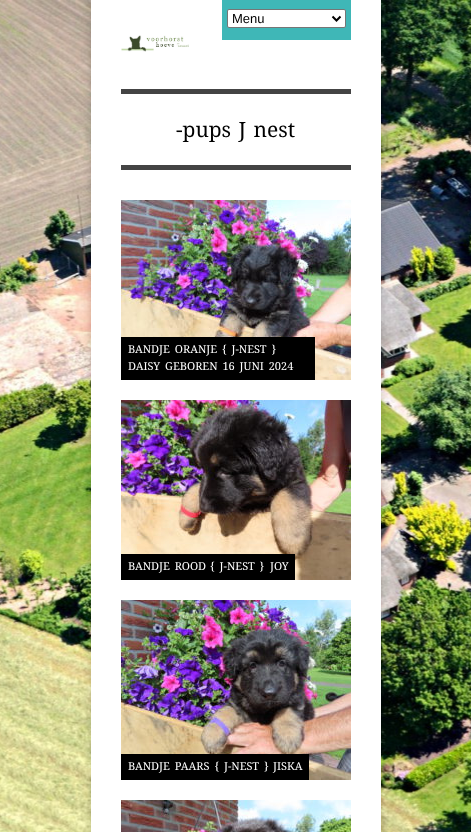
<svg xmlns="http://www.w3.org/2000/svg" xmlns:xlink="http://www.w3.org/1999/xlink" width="471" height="832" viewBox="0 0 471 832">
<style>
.cls-1{font:13px Liberation Sans;fill:#000000}
.cls-2{font:21px Droid Serif;fill:#000000}
.cls-3{font:11px Droid Serif;fill:#ffffff}
</style>
<rect width="100%" height="100%" fill="#ffffff"/>
<image xlink:href="image0.png" x="0" y="0" width="471" height="832"/>
<rect fill="#000000" fill-opacity="0.2" filter="blur(5px)" x="91" y="0" width="290" height="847"/>
<rect fill="#ffffff" x="91" y="0" width="290" height="832"/>
<rect fill="#444444" x="121" y="89" width="230" height="5"/>
<rect fill="#3fb7b7" x="222" y="0" width="129" height="40"/>
<rect fill="#ffffff" stroke="#767676" x="227.5" y="9.5" width="118" height="18" rx="1.5"/>
<path fill="none" stroke="#000000" stroke-width="2" d="M332.5 16.5L336.5 20.5L340.5 16.5"/>
<image xlink:href="image1.png" x="121" y="35" width="68" height="17"/>
<rect fill="#444444" x="121" y="165" width="230" height="5"/>
<image xlink:href="image2.png" x="121" y="200" width="230" height="180"/>
<rect fill="#000000" x="121" y="337" width="194" height="43"/>
<image xlink:href="image3.png" x="121" y="400" width="230" height="180"/>
<rect fill="#000000" x="121" y="554" width="174" height="26"/>
<image xlink:href="image4.png" x="121" y="600" width="230" height="180"/>
<rect fill="#000000" x="121" y="754" width="188" height="26"/>
<image xlink:href="image5.png" x="121" y="800" width="230" height="32"/>
<text class="cls-1" x="232" y="23">Menu</text>
<text class="cls-2" x="176" y="137" word-spacing="2">-pups J nest</text>
<text class="cls-3"><tspan x="128" y="353" word-spacing="2">BANDJE ORANJE { J-NEST }</tspan><tspan x="128" y="370" word-spacing="2">DAISY GEBOREN 16 JUNI 2024</tspan></text>
<text class="cls-3" x="128" y="570" word-spacing="2">BANDJE ROOD</text>
<text class="cls-3" x="210" y="570" word-spacing="2">{ J-NEST }</text>
<text class="cls-3" x="270" y="570">JOY</text>
<text class="cls-3" x="128" y="770" word-spacing="2">BANDJE PAARS { J-NEST }</text>
<text class="cls-3" x="273" y="770">JISKA</text>
</svg>
